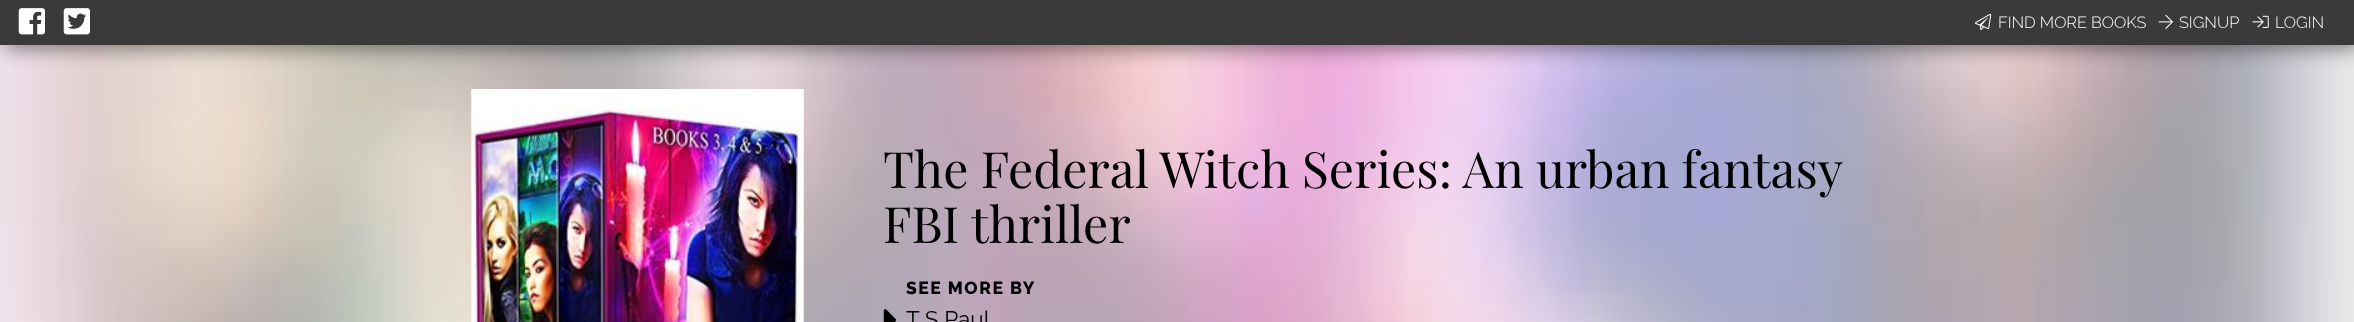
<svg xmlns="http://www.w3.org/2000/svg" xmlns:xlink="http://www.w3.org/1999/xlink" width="2354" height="322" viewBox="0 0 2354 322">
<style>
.cls-1{font:300 16.25px Raleway;fill:#ffffff}
.cls-2{font:50px Playfair Display;fill:#000000}
.cls-3{font:800 17.5px Raleway;letter-spacing:1.5px;fill:#000000}
.cls-4{font:22.5px Raleway;fill:#000000}
</style>
<rect width="100%" height="100%" fill="#ffffff"/>
<image xlink:href="image0.png" x="0" y="45" width="2354" height="277"/>
<rect fill="#000000" fill-opacity="0.4" filter="blur(9px)" x="5" y="5" width="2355" height="45"/>
<rect fill="#3a3a3a" x="0" y="0" width="2354" height="45"/>
<image xlink:href="image1.png" x="18" y="8" width="27" height="27"/>
<image xlink:href="image2.png" x="63" y="8" width="27" height="27"/>
<image xlink:href="image3.png" x="1975" y="13" width="17" height="17"/>
<image xlink:href="image4.png" x="2158" y="14" width="15" height="15"/>
<image xlink:href="image5.png" x="2252" y="15" width="17" height="13"/>
<image xlink:href="image6.png" x="471" y="89" width="333" height="233"/>
<image xlink:href="image7.png" x="883" y="309" width="14" height="13"/>
<text class="cls-1" x="1998" y="28">FIND MORE BOOKS</text>
<text class="cls-1" x="2179" y="28">SIGNUP</text>
<text class="cls-1" x="2275" y="28">LOGIN</text>
<text class="cls-2"><tspan x="883" y="188" word-spacing="-0.25">The Federal Witch Series: An urban fantasy</tspan><tspan x="883" y="243">FBI thriller</tspan></text>
<text class="cls-3" x="906" y="294">SEE MORE BY</text>
<text class="cls-4" x="906" y="327">T S Paul</text>
</svg>
